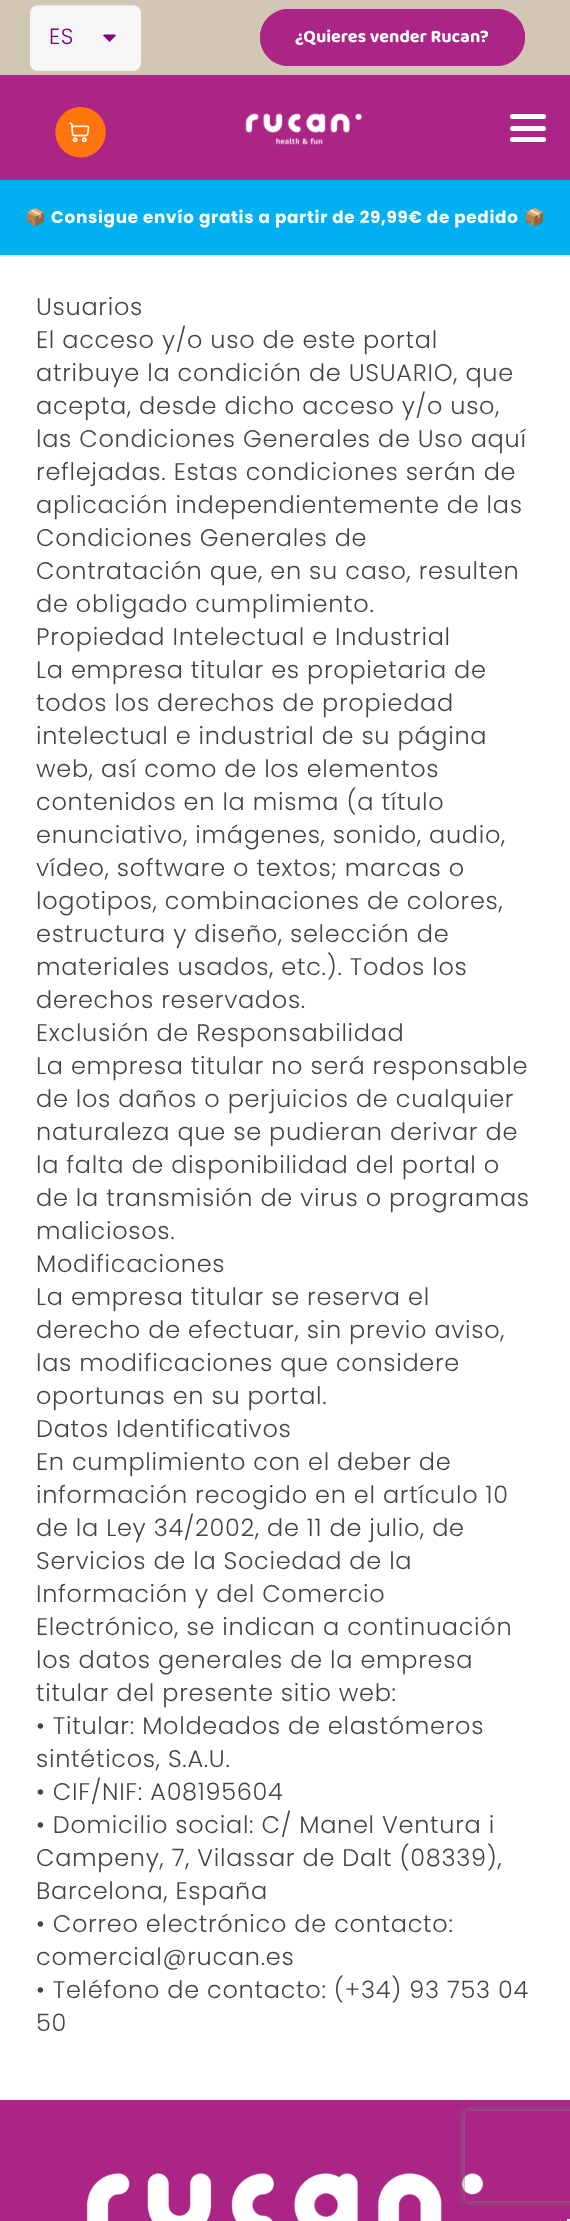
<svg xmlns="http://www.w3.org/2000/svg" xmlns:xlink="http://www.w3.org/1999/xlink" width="570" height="2221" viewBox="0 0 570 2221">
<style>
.cls-1{font:300 22px Poppins;letter-spacing:0.7px;fill:#800080}
.cls-2{font:bold 18px 'Baloo 2';fill:#ffffff}
.cls-3{font:bold 16.8px Noto Color Emoji;letter-spacing:0.7px;fill:#ffffff}
.cls-4{font:bold 16.8px Poppins;letter-spacing:0.7px;fill:#ffffff}
.cls-5{font:300 24px Poppins;letter-spacing:0.7px;fill:#444444}
</style>
<defs>
<clipPath id="clip1"><path d="M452 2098H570V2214H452ZM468 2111H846C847.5 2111 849 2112.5 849 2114V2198C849 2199.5 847.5 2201 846 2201H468C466.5 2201 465 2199.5 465 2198V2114C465 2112.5 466.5 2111 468 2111Z" clip-rule="evenodd"/></clipPath>
</defs>
<rect width="100%" height="100%" fill="#ffffff"/>
<rect fill="#d2c6b5" x="0" y="0" width="570" height="75"/>
<rect fill="#f6f6f6" x="30" y="5" width="111" height="66" rx="8"/>
<path fill="#000000" fill-opacity="0.08" d="M37 6H134C138 6 141 9 141 13C141 9 137 5 133 5H38C34 5 30 9 30 13C30 9 33 6 37 6Z"/>
<path fill="#800080" d="M105 34.5C104 34.5 103.5 35 103 35.5L109.5 42L116 35.5C115.5 35 115 34.5 114 34.5Z"/>
<rect fill="#aa2585" x="260" y="9" width="265" height="57" rx="28.5"/>
<rect fill="none" stroke="#aa2585" stroke-width="3" x="261.5" y="10.5" width="262" height="54" rx="27"/>
<rect fill="#aa2585" x="0" y="75" width="570" height="105"/>
<image xlink:href="image0.png" x="55" y="107" width="51" height="51"/>
<image xlink:href="image1.png" x="245" y="113" width="117" height="32"/>
<rect fill="#ffffff" x="510" y="126" width="36" height="5" rx="2.5"/>
<rect fill="#ffffff" x="510" y="114" width="36" height="5" rx="2.5"/>
<rect fill="#ffffff" x="510" y="137" width="36" height="5" rx="2.5"/>
<rect fill="#ebebeb" x="0" y="255" width="570" height="2"/>
<rect fill="#00b0f1" x="0" y="180" width="570" height="75"/>
<rect fill="#aa2585" x="0" y="2100" width="570" height="121"/>
<image xlink:href="image2.png" x="86" y="2173" width="398" height="48"/>
<g clip-path="url(#clip1)">
<rect fill="#808080" filter="blur(4px)" x="465" y="2111" width="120" height="90" rx="3"/>
</g>
<rect fill="#f5f5f5" x="567" y="2219" width="3" height="2"/>
<text class="cls-1" x="49" y="44">ES</text>
<text class="cls-2" x="295" y="42">¿Quieres vender Rucan?</text>
<text class="cls-3" x="25" y="223">📦</text>
<text class="cls-4" x="51" y="223">Consigue envío gratis a partir de 29,99€ de pedido</text>
<text class="cls-3" x="524" y="223">📦</text>
<text class="cls-5"><tspan x="36" y="315">Usuarios</tspan><tspan x="36" y="348">El acceso y/o uso de este portal</tspan><tspan x="36" y="381">atribuye la condición de USUARIO, que</tspan><tspan x="36" y="414">acepta, desde dicho acceso y/o uso,</tspan><tspan x="36" y="447">las Condiciones Generales de Uso aquí</tspan><tspan x="36" y="480">reflejadas. Estas condiciones serán de</tspan><tspan x="36" y="513">aplicación independientemente de las</tspan><tspan x="36" y="546">Condiciones Generales de</tspan><tspan x="36" y="579">Contratación que, en su caso, resulten</tspan><tspan x="36" y="612">de obligado cumplimiento.</tspan><tspan x="36" y="645">Propiedad Intelectual e Industrial</tspan><tspan x="36" y="678">La empresa titular es propietaria de</tspan><tspan x="36" y="711">todos los derechos de propiedad</tspan><tspan x="36" y="744">intelectual e industrial de su página</tspan><tspan x="36" y="777">web, así como de los elementos</tspan><tspan x="36" y="810">contenidos en la misma (a título</tspan><tspan x="36" y="843">enunciativo, imágenes, sonido, audio,</tspan><tspan x="36" y="876">vídeo, software o textos; marcas o</tspan><tspan x="36" y="909">logotipos, combinaciones de colores,</tspan><tspan x="36" y="942">estructura y diseño, selección de</tspan><tspan x="36" y="975">materiales usados, etc.). Todos los</tspan><tspan x="36" y="1008">derechos reservados.</tspan><tspan x="36" y="1041">Exclusión de Responsabilidad</tspan><tspan x="36" y="1074">La empresa titular no será responsable</tspan><tspan x="36" y="1107">de los daños o perjuicios de cualquier</tspan><tspan x="36" y="1140">naturaleza que se pudieran derivar de</tspan><tspan x="36" y="1173">la falta de disponibilidad del portal o</tspan><tspan x="36" y="1206">de la transmisión de virus o programas</tspan><tspan x="36" y="1239">maliciosos.</tspan><tspan x="36" y="1272">Modificaciones</tspan><tspan x="36" y="1305">La empresa titular se reserva el</tspan><tspan x="36" y="1338">derecho de efectuar, sin previo aviso,</tspan><tspan x="36" y="1371">las modificaciones que considere</tspan><tspan x="36" y="1404">oportunas en su portal.</tspan><tspan x="36" y="1437">Datos Identificativos</tspan><tspan x="36" y="1470">En cumplimiento con el deber de</tspan><tspan x="36" y="1503">información recogido en el artículo 10</tspan><tspan x="36" y="1536">de la Ley 34/2002, de 11 de julio, de</tspan><tspan x="36" y="1569">Servicios de la Sociedad de la</tspan><tspan x="36" y="1602">Información y del Comercio</tspan><tspan x="36" y="1635">Electrónico, se indican a continuación</tspan><tspan x="36" y="1668">los datos generales de la empresa</tspan><tspan x="36" y="1701">titular del presente sitio web:</tspan><tspan x="36" y="1734">• Titular: Moldeados de elastómeros</tspan><tspan x="36" y="1767">sintéticos, S.A.U.</tspan><tspan x="36" y="1800">• CIF/NIF: A08195604</tspan><tspan x="36" y="1833">• Domicilio social: C/ Manel Ventura i</tspan><tspan x="36" y="1866">Campeny, 7, Vilassar de Dalt (08339),</tspan><tspan x="36" y="1899">Barcelona, España</tspan><tspan x="36" y="1932">• Correo electrónico de contacto:</tspan><tspan x="36" y="1965">comercial@rucan.es</tspan><tspan x="36" y="1998">• Teléfono de contacto: (+34) 93 753 04</tspan><tspan x="36" y="2031">50</tspan></text>
</svg>
